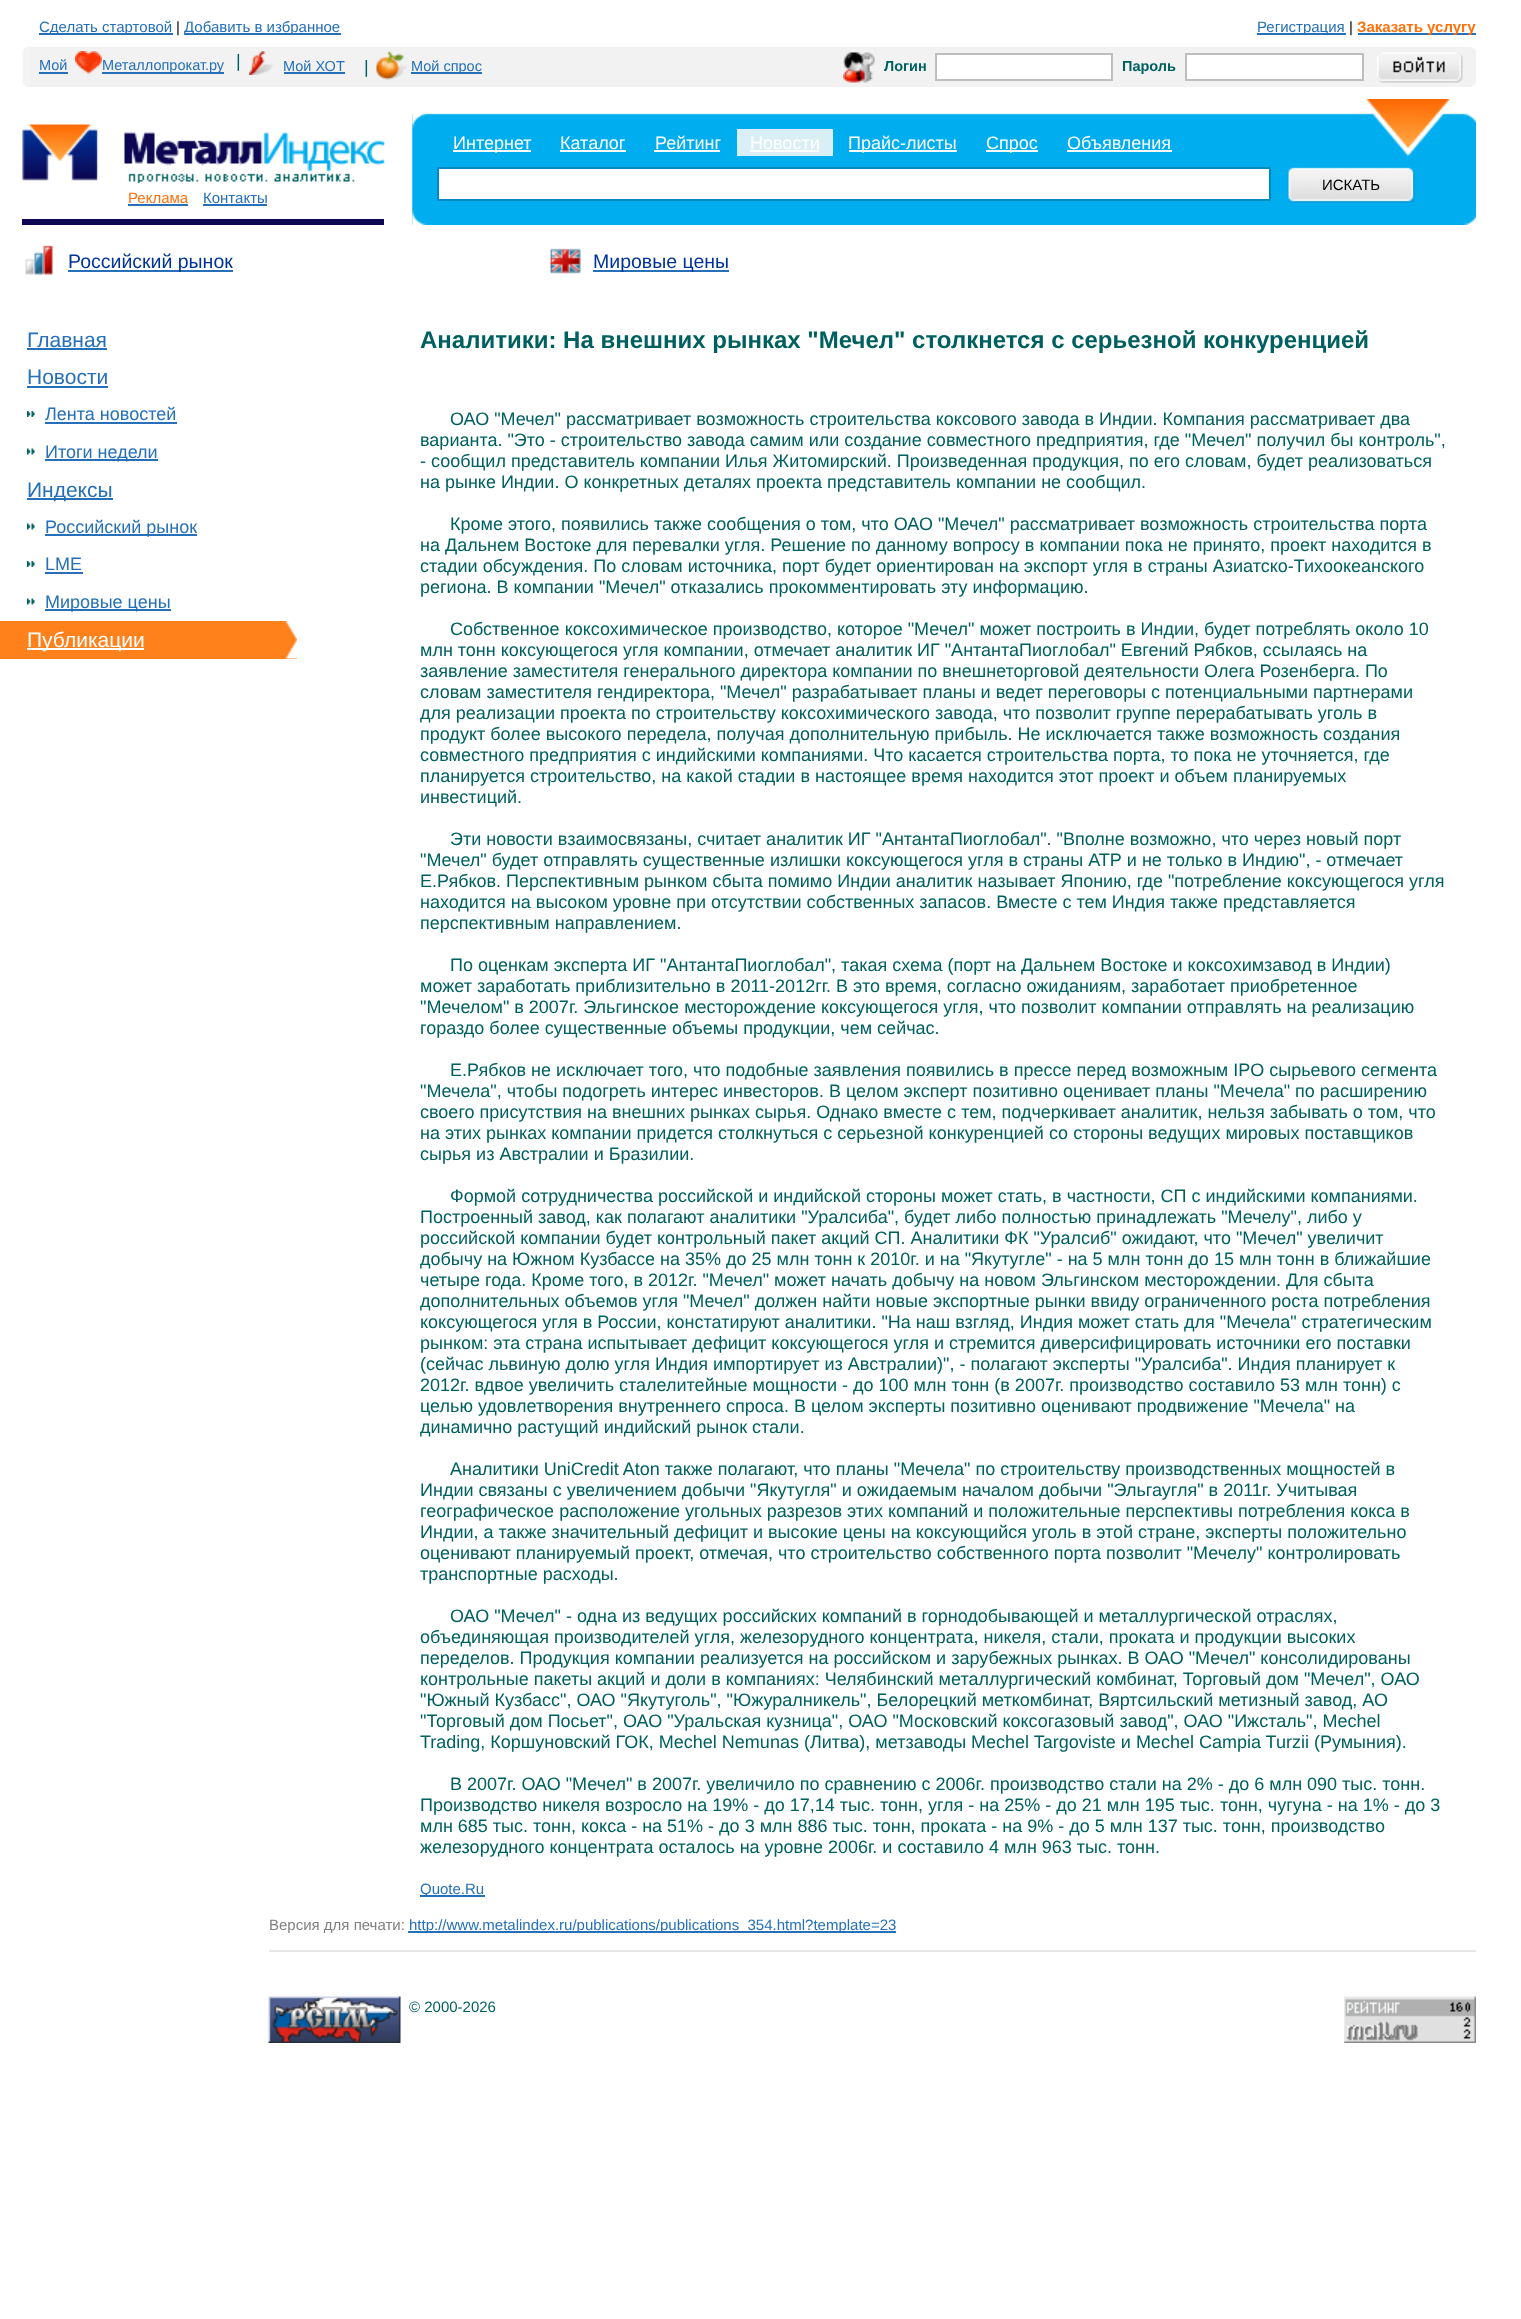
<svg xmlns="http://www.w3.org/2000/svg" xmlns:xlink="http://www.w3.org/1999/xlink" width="1521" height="2319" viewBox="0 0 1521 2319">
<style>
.cls-1{font:15px Liberation Sans;fill:#2570b8}
.cls-2{font:15px Liberation Sans;fill:#000000}
.cls-3{font:bold 15px Liberation Sans;fill:#ff710b}
.cls-4{font:14.5px Liberation Sans;fill:#2570b8}
.cls-5{font:18px Liberation Sans;fill:#006060}
.cls-6{font:bold 14.5px Liberation Sans;fill:#006060}
.cls-7{font:18px Liberation Sans;fill:#ffffff}
.cls-8{font:15px Liberation Sans;fill:#ff710b}
.cls-9{font:19.5px Liberation Sans;fill:#003399}
.cls-10{font:21px Liberation Sans;fill:#2570b8}
.cls-11{font:18px Liberation Sans;fill:#2570b8}
.cls-12{font:21px Liberation Sans;fill:#ffffff}
.cls-13{font:bold 24px Liberation Sans;fill:#006060}
.cls-14{font:15px Liberation Sans;fill:#808080}
.cls-15{font:15px Liberation Sans;fill:#006060}
</style>
<rect width="100%" height="100%" fill="#ffffff"/>
<rect fill="#2570b8" x="39" y="33" width="134" height="2"/>
<rect fill="#2570b8" x="185" y="33" width="156" height="2"/>
<rect fill="#2570b8" x="1257" y="33" width="89" height="2"/>
<rect fill="#2570b8" x="1358" y="33" width="118" height="2"/>
<rect fill="#f2f2f2" x="30" y="47" width="1446" height="40"/>
<image xlink:href="image0.png" x="22" y="46" width="8" height="41"/>
<image xlink:href="image1.png" x="23" y="83" width="3" height="4"/>
<image xlink:href="image2.png" x="75" y="51" width="27" height="23"/>
<rect fill="#2570b8" x="39" y="72" width="29" height="2"/>
<rect fill="#2570b8" x="102" y="72" width="122" height="2"/>
<image xlink:href="image3.png" x="249" y="51" width="24" height="24"/>
<rect fill="#2570b8" x="284" y="72" width="61" height="2"/>
<image xlink:href="image4.png" x="376" y="51" width="31" height="29"/>
<rect fill="#2570b8" x="411" y="72" width="71" height="2"/>
<image xlink:href="image5.png" x="843" y="52" width="32" height="31"/>
<rect fill="#ffffff" stroke="#bebebe" stroke-width="2" x="936" y="54" width="176" height="26"/>
<rect fill="#ffffff" stroke="#bebebe" stroke-width="2" x="1186" y="54" width="177" height="26"/>
<image xlink:href="image6.png" x="1377" y="52" width="86" height="31"/>
<image xlink:href="image7.png" x="1469" y="46" width="7" height="4"/>
<image xlink:href="image8.png" x="1472" y="83" width="4" height="4"/>
<image xlink:href="image9.png" x="412" y="113" width="954" height="112"/>
<image xlink:href="image10.png" x="412" y="113" width="15" height="112"/>
<image xlink:href="image11.png" x="1366" y="99" width="110" height="126"/>
<rect fill="#ffffff" x="453" y="150" width="78" height="2"/>
<rect fill="#ffffff" x="560" y="150" width="66" height="2"/>
<rect fill="#ffffff" x="654" y="150" width="66" height="2"/>
<rect fill="#daeef6" x="737" y="129" width="96" height="27"/>
<rect fill="#ffffff" x="750" y="150" width="69" height="2"/>
<rect fill="#ffffff" x="849" y="150" width="108" height="2"/>
<rect fill="#ffffff" x="986" y="150" width="52" height="2"/>
<rect fill="#ffffff" x="1067" y="150" width="105" height="2"/>
<rect fill="#ffffff" stroke="#008abf" stroke-width="2" x="438" y="168" width="832" height="32"/>
<image xlink:href="image12.png" x="1287" y="167" width="128" height="36"/>
<rect fill="#0c0653" x="22" y="219" width="362" height="6"/>
<image xlink:href="image13.png" x="22" y="124" width="76" height="57"/>
<image xlink:href="image14.png" x="97" y="129" width="289" height="54"/>
<rect fill="#2570b8" x="128" y="204" width="60" height="2"/>
<rect fill="#2570b8" x="203" y="204" width="64" height="2"/>
<image xlink:href="image15.png" x="25" y="245" width="28" height="30"/>
<rect fill="#2570b8" x="68" y="270" width="165" height="2"/>
<image xlink:href="image16.png" x="550" y="248" width="31" height="26"/>
<rect fill="#2570b8" x="593" y="270" width="136" height="2"/>
<rect fill="#2570b8" x="27" y="348" width="80" height="2"/>
<rect fill="#2570b8" x="27" y="386" width="81" height="2"/>
<image xlink:href="image17.png" x="27" y="411" width="8" height="6"/>
<rect fill="#2570b8" x="45" y="422" width="132" height="2"/>
<image xlink:href="image18.png" x="27" y="448" width="8" height="7"/>
<rect fill="#2570b8" x="45" y="459" width="113" height="2"/>
<rect fill="#2570b8" x="27" y="498" width="86" height="2"/>
<image xlink:href="image18.png" x="27" y="523" width="8" height="7"/>
<rect fill="#2570b8" x="45" y="534" width="152" height="2"/>
<image xlink:href="image17.png" x="27" y="561" width="8" height="6"/>
<rect fill="#2570b8" x="45" y="572" width="38" height="2"/>
<image xlink:href="image18.png" x="27" y="598" width="8" height="7"/>
<rect fill="#2570b8" x="45" y="609" width="126" height="2"/>
<rect fill="#ff811b" x="0" y="621" width="297" height="38"/>
<image xlink:href="image19.png" x="285" y="621" width="12" height="38"/>
<rect fill="#ffffff" x="27" y="648" width="117" height="2"/>
<rect fill="#2570b8" x="420" y="1895" width="65" height="2"/>
<rect fill="#2570b8" x="408" y="1931" width="488" height="2"/>
<rect fill="#e7e7e7" x="269" y="1950" width="1207" height="2"/>
<image xlink:href="image20.png" x="268" y="1996" width="133" height="47"/>
<image xlink:href="image21.png" x="1344" y="1996" width="132" height="47"/>
<text class="cls-1" x="39" y="32">Сделать стартовой</text>
<text class="cls-2" x="176" y="32">|</text>
<text class="cls-1" x="184" y="32">Добавить в избранное</text>
<text class="cls-1" x="1257" y="32">Регистрация</text>
<text class="cls-2" x="1349" y="32">|</text>
<text class="cls-3" x="1357" y="32">Заказать услугу</text>
<text class="cls-4" x="39" y="70">Мой</text>
<text class="cls-4" x="102" y="70">Металлопрокат.ру</text>
<text class="cls-5" x="236" y="67">|</text>
<text class="cls-4" x="283" y="71">Мой ХОТ</text>
<text class="cls-5" x="364" y="73">|</text>
<text class="cls-4" x="411" y="71">Мой спрос</text>
<text class="cls-6" x="884" y="71">Логин</text>
<text class="cls-6" x="1122" y="71">Пароль</text>
<text class="cls-7" x="453" y="149">Интернет</text>
<text class="cls-7" x="560" y="149">Каталог</text>
<text class="cls-7" x="655" y="149">Рейтинг</text>
<text class="cls-7" x="750" y="149">Новости</text>
<text class="cls-7" x="848" y="149">Прайс-листы</text>
<text class="cls-7" x="986" y="149">Спрос</text>
<text class="cls-7" x="1067" y="149">Объявления</text>
<text class="cls-2" x="1322" y="190">ИСКАТЬ</text>
<text class="cls-8" x="128" y="203">Реклама</text>
<text class="cls-1" x="203" y="203">Контакты</text>
<text class="cls-9" x="68" y="268">Российский рынок</text>
<text class="cls-9" x="593" y="268">Мировые цены</text>
<text class="cls-10"><tspan x="27" y="347">Главная</tspan><tspan x="27" y="384">Новости</tspan></text>
<text class="cls-11" x="45" y="420">Лента новостей</text>
<text class="cls-11" x="45" y="458">Итоги недели</text>
<text class="cls-10" x="27" y="497">Индексы</text>
<text class="cls-11" x="45" y="533">Российский рынок</text>
<text class="cls-11" x="45" y="570">LME</text>
<text class="cls-11" x="45" y="608">Мировые цены</text>
<text class="cls-12" x="27" y="647">Публикации</text>
<text class="cls-13" x="420" y="348">Аналитики: На внешних рынках "Мечел" столкнется с серьезной конкуренцией</text>
<text class="cls-5" x="450" y="425">ОАО "Мечел" рассматривает возможность строительства коксового завода в Индии. Компания рассматривает два</text>
<text class="cls-5"><tspan x="420" y="446">варианта. "Это - строительство завода самим или создание совместного предприятия, где "Мечел" получил бы контроль",</tspan><tspan x="420" y="467">- сообщил представитель компании Илья Житомирский. Произведенная продукция, по его словам, будет реализоваться</tspan><tspan x="420" y="488">на рынке Индии. О конкретных деталях проекта представитель компании не сообщил.</tspan></text>
<text class="cls-5" x="450" y="530">Кроме этого, появились также сообщения о том, что ОАО "Мечел" рассматривает возможность строительства порта</text>
<text class="cls-5"><tspan x="420" y="551">на Дальнем Востоке для перевалки угля. Решение по данному вопросу в компании пока не принято, проект находится в</tspan><tspan x="420" y="572">стадии обсуждения. По словам источника, порт будет ориентирован на экспорт угля в страны Азиатско-Тихоокеанского</tspan><tspan x="420" y="593">региона. В компании "Мечел" отказались прокомментировать эту информацию.</tspan></text>
<text class="cls-5" x="450" y="635">Собственное коксохимическое производство, которое "Мечел" может построить в Индии, будет потреблять около 10</text>
<text class="cls-5"><tspan x="420" y="656">млн тонн коксующегося угля компании, отмечает аналитик ИГ "АнтантаПиоглобал" Евгений Рябков, ссылаясь на</tspan><tspan x="420" y="677">заявление заместителя генерального директора компании по внешнеторговой деятельности Олега Розенберга. По</tspan><tspan x="420" y="698">словам заместителя гендиректора, "Мечел" разрабатывает планы и ведет переговоры с потенциальными партнерами</tspan><tspan x="420" y="719">для реализации проекта по строительству коксохимического завода, что позволит группе перерабатывать уголь в</tspan><tspan x="420" y="740">продукт более высокого передела, получая дополнительную прибыль. Не исключается также возможность создания</tspan><tspan x="420" y="761">совместного предприятия с индийскими компаниями. Что касается строительства порта, то пока не уточняется, где</tspan><tspan x="420" y="782">планируется строительство, на какой стадии в настоящее время находится этот проект и объем планируемых</tspan><tspan x="420" y="803">инвестиций.</tspan></text>
<text class="cls-5" x="450" y="845">Эти новости взаимосвязаны, считает аналитик ИГ "АнтантаПиоглобал". "Вполне возможно, что через новый порт</text>
<text class="cls-5"><tspan x="420" y="866">"Мечел" будет отправлять существенные излишки коксующегося угля в страны АТР и не только в Индию", - отмечает</tspan><tspan x="420" y="887">Е.Рябков. Перспективным рынком сбыта помимо Индии аналитик называет Японию, где "потребление коксующегося угля</tspan><tspan x="420" y="908">находится на высоком уровне при отсутствии собственных запасов. Вместе с тем Индия также представляется</tspan><tspan x="420" y="929">перспективным направлением.</tspan></text>
<text class="cls-5" x="450" y="971">По оценкам эксперта ИГ "АнтантаПиоглобал", такая схема (порт на Дальнем Востоке и коксохимзавод в Индии)</text>
<text class="cls-5"><tspan x="420" y="992">может заработать приблизительно в 2011-2012гг. В это время, согласно ожиданиям, заработает приобретенное</tspan><tspan x="420" y="1013">"Мечелом" в 2007г. Эльгинское месторождение коксующегося угля, что позволит компании отправлять на реализацию</tspan><tspan x="420" y="1034">гораздо более существенные объемы продукции, чем сейчас.</tspan></text>
<text class="cls-5" x="450" y="1076">Е.Рябков не исключает того, что подобные заявления появились в прессе перед возможным IPO сырьевого сегмента</text>
<text class="cls-5"><tspan x="420" y="1097">"Мечела", чтобы подогреть интерес инвесторов. В целом эксперт позитивно оценивает планы "Мечела" по расширению</tspan><tspan x="420" y="1118">своего присутствия на внешних рынках сырья. Однако вместе с тем, подчеркивает аналитик, нельзя забывать о том, что</tspan><tspan x="420" y="1139">на этих рынках компании придется столкнуться с серьезной конкуренцией со стороны ведущих мировых поставщиков</tspan><tspan x="420" y="1160">сырья из Австралии и Бразилии.</tspan></text>
<text class="cls-5" x="450" y="1202">Формой сотрудничества российской и индийской стороны может стать, в частности, СП с индийскими компаниями.</text>
<text class="cls-5"><tspan x="420" y="1223">Построенный завод, как полагают аналитики "Уралсиба", будет либо полностью принадлежать "Мечелу", либо у</tspan><tspan x="420" y="1244">российской компании будет контрольный пакет акций СП. Аналитики ФК "Уралсиб" ожидают, что "Мечел" увеличит</tspan><tspan x="420" y="1265">добычу на Южном Кузбассе на 35% до 25 млн тонн к 2010г. и на "Якутугле" - на 5 млн тонн до 15 млн тонн в ближайшие</tspan><tspan x="420" y="1286">четыре года. Кроме того, в 2012г. "Мечел" может начать добычу на новом Эльгинском месторождении. Для сбыта</tspan><tspan x="420" y="1307">дополнительных объемов угля "Мечел" должен найти новые экспортные рынки ввиду ограниченного роста потребления</tspan><tspan x="420" y="1328">коксующегося угля в России, констатируют аналитики. "На наш взгляд, Индия может стать для "Мечела" стратегическим</tspan><tspan x="420" y="1349">рынком: эта страна испытывает дефицит коксующегося угля и стремится диверсифицировать источники его поставки</tspan><tspan x="420" y="1370">(сейчас львиную долю угля Индия импортирует из Австралии)", - полагают эксперты "Уралсиба". Индия планирует к</tspan><tspan x="420" y="1391">2012г. вдвое увеличить сталелитейные мощности - до 100 млн тонн (в 2007г. производство составило 53 млн тонн) с</tspan><tspan x="420" y="1412">целью удовлетворения внутреннего спроса. В целом эксперты позитивно оценивают продвижение "Мечела" на</tspan><tspan x="420" y="1433">динамично растущий индийский рынок стали.</tspan></text>
<text class="cls-5" x="450" y="1475">Аналитики UniCredit Aton также полагают, что планы "Мечела" по строительству производственных мощностей в</text>
<text class="cls-5"><tspan x="420" y="1496">Индии связаны с увеличением добычи "Якутугля" и ожидаемым началом добычи "Эльгаугля" в 2011г. Учитывая</tspan><tspan x="420" y="1517">географическое расположение угольных разрезов этих компаний и положительные перспективы потребления кокса в</tspan><tspan x="420" y="1538">Индии, а также значительный дефицит и высокие цены на коксующийся уголь в этой стране, эксперты положительно</tspan><tspan x="420" y="1559">оценивают планируемый проект, отмечая, что строительство собственного порта позволит "Мечелу" контролировать</tspan><tspan x="420" y="1580">транспортные расходы.</tspan></text>
<text class="cls-5" x="450" y="1622">ОАО "Мечел" - одна из ведущих российских компаний в горнодобывающей и металлургической отраслях,</text>
<text class="cls-5"><tspan x="420" y="1643">объединяющая производителей угля, железорудного концентрата, никеля, стали, проката и продукции высоких</tspan><tspan x="420" y="1664">переделов. Продукция компании реализуется на российском и зарубежных рынках. В ОАО "Мечел" консолидированы</tspan><tspan x="420" y="1685">контрольные пакеты акций и доли в компаниях: Челябинский металлургический комбинат, Торговый дом "Мечел", ОАО</tspan><tspan x="420" y="1706">"Южный Кузбасс", ОАО "Якутуголь", "Южуралникель", Белорецкий меткомбинат, Вяртсильский метизный завод, АО</tspan><tspan x="420" y="1727">"Торговый дом Посьет", ОАО "Уральская кузница", ОАО "Московский коксогазовый завод", ОАО "Ижсталь", Mechel</tspan><tspan x="420" y="1748">Trading, Коршуновский ГОК, Mechel Nemunas (Литва), метзаводы Mechel Targoviste и Mechel Campia Turzii (Румыния).</tspan></text>
<text class="cls-5" x="450" y="1790">В 2007г. ОАО "Мечел" в 2007г. увеличило по сравнению с 2006г. производство стали на 2% - до 6 млн 090 тыс. тонн.</text>
<text class="cls-5"><tspan x="420" y="1811">Производство никеля возросло на 19% - до 17,14 тыс. тонн, угля - на 25% - до 21 млн 195 тыс. тонн, чугуна - на 1% - до 3</tspan><tspan x="420" y="1832">млн 685 тыс. тонн, кокса - на 51% - до 3 млн 886 тыс. тонн, проката - на 9% - до 5 млн 137 тыс. тонн, производство</tspan><tspan x="420" y="1853">железорудного концентрата осталось на уровне 2006г. и составило 4 млн 963 тыс. тонн.</tspan></text>
<text class="cls-1" x="420" y="1894">Quote.Ru</text>
<text class="cls-14" x="269" y="1930">Версия для печати:</text>
<text class="cls-1" x="409" y="1930">http://www.metalindex.ru/publications/publications_354.html?template=23</text>
<text class="cls-15" x="409" y="2012">© 2000-2026</text>
</svg>
